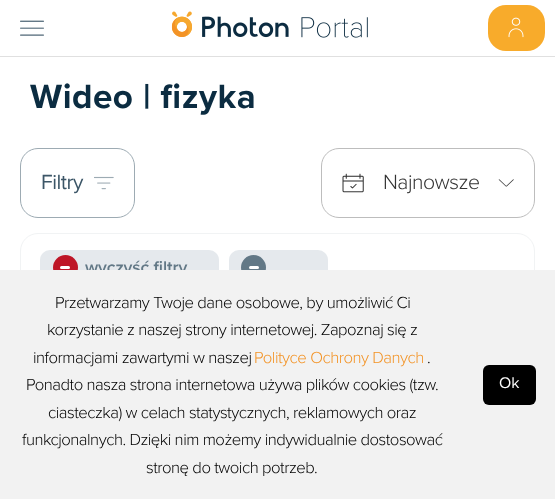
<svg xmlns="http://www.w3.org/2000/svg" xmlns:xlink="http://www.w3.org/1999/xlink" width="555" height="499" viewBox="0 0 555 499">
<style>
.cls-1{font:bold 35px Proxima Nova;letter-spacing:0.5px;fill:#0b2c41}
.cls-2{font:21.25px Proxima Nova;letter-spacing:-0.5px;fill:#3c5667}
.cls-3{font:300 21.25px Proxima Nova;letter-spacing:-0.5px;fill:#333333}
.cls-4{font:600 17.5px Proxima Nova;letter-spacing:-0.1px;fill:#627886}
.cls-5{font:300 16.7px Proxima Nova;letter-spacing:-0.5px;fill:#000000}
.cls-6{font:300 16.7px Proxima Nova;letter-spacing:-0.5px;fill:#f39325}
.cls-7{font:16px Proxima Nova;fill:#ffffff}
</style>
<rect width="100%" height="100%" fill="#ffffff"/>
<rect fill="#e0e0e0" x="0" y="56" width="555" height="1"/>
<image xlink:href="image0.png" x="20" y="20" width="24" height="16"/>
<image xlink:href="image1.png" x="171" y="11" width="197" height="27"/>
<rect fill="#f8ab2b" x="488" y="5" width="57" height="46" rx="18"/>
<image xlink:href="image2.png" x="508" y="17" width="16" height="21"/>
<rect fill="none" stroke="#9dabb3" x="20.5" y="148.5" width="114" height="69" rx="17.5"/>
<image xlink:href="image3.png" x="94" y="176" width="20" height="14"/>
<rect fill="none" stroke="#bdbdbd" x="321.5" y="148.5" width="213" height="69" rx="17.5"/>
<image xlink:href="image4.png" x="342" y="173" width="22" height="20"/>
<image xlink:href="image5.png" x="498" y="179" width="16" height="8"/>
<rect fill="none" stroke="#f1f3f4" x="20.5" y="233.5" width="514" height="69" rx="17.5"/>
<rect fill="#e5e9ed" x="40" y="250" width="179" height="35" rx="10"/>
<circle fill="#be1627" cx="65.5" cy="267.5" r="12.5"/>
<rect fill="#ffffff" x="60" y="266" width="10" height="3" rx="1.5"/>
<rect fill="#e5e9ed" x="229" y="250" width="99" height="35" rx="10"/>
<circle fill="#627886" cx="253.5" cy="267.5" r="12.5"/>
<rect fill="#ffffff" x="249" y="266" width="10" height="3" rx="1.5"/>
<text class="cls-1" x="30" y="108">Wideo | fizyka</text>
<text class="cls-2" x="41" y="189">Filtry</text>
<text class="cls-3" x="383" y="189">Najnowsze</text>
<text class="cls-4" x="85" y="273">wyczyść filtry</text>
<rect fill="#f2f2f2" x="0" y="270" width="555" height="229"/>
<text class="cls-5" x="55" y="308">Przetwarzamy Twoje dane osobowe, by umożliwić Ci</text>
<text class="cls-5" x="47" y="335">korzystanie z naszej strony internetowej. Zapoznaj się z</text>
<text class="cls-5" x="33" y="363">informacjami zawartymi w naszej</text>
<text class="cls-6" x="254" y="363">Polityce Ochrony Danych</text>
<text class="cls-5" x="427" y="363">.</text>
<text class="cls-5" x="26" y="390">Ponadto nasza strona internetowa używa plików cookies (tzw.</text>
<text class="cls-5" x="48" y="418">ciasteczka) w celach statystycznych, reklamowych oraz</text>
<text class="cls-5" x="22" y="445">funkcjonalnych. Dzięki nim możemy indywidualnie dostosować</text>
<text class="cls-5" x="146" y="473">stronę do twoich potrzeb.</text>
<rect fill="#000000" x="483" y="365" width="53" height="40" rx="6"/>
<text class="cls-7" x="499" y="388">Ok</text>
</svg>
